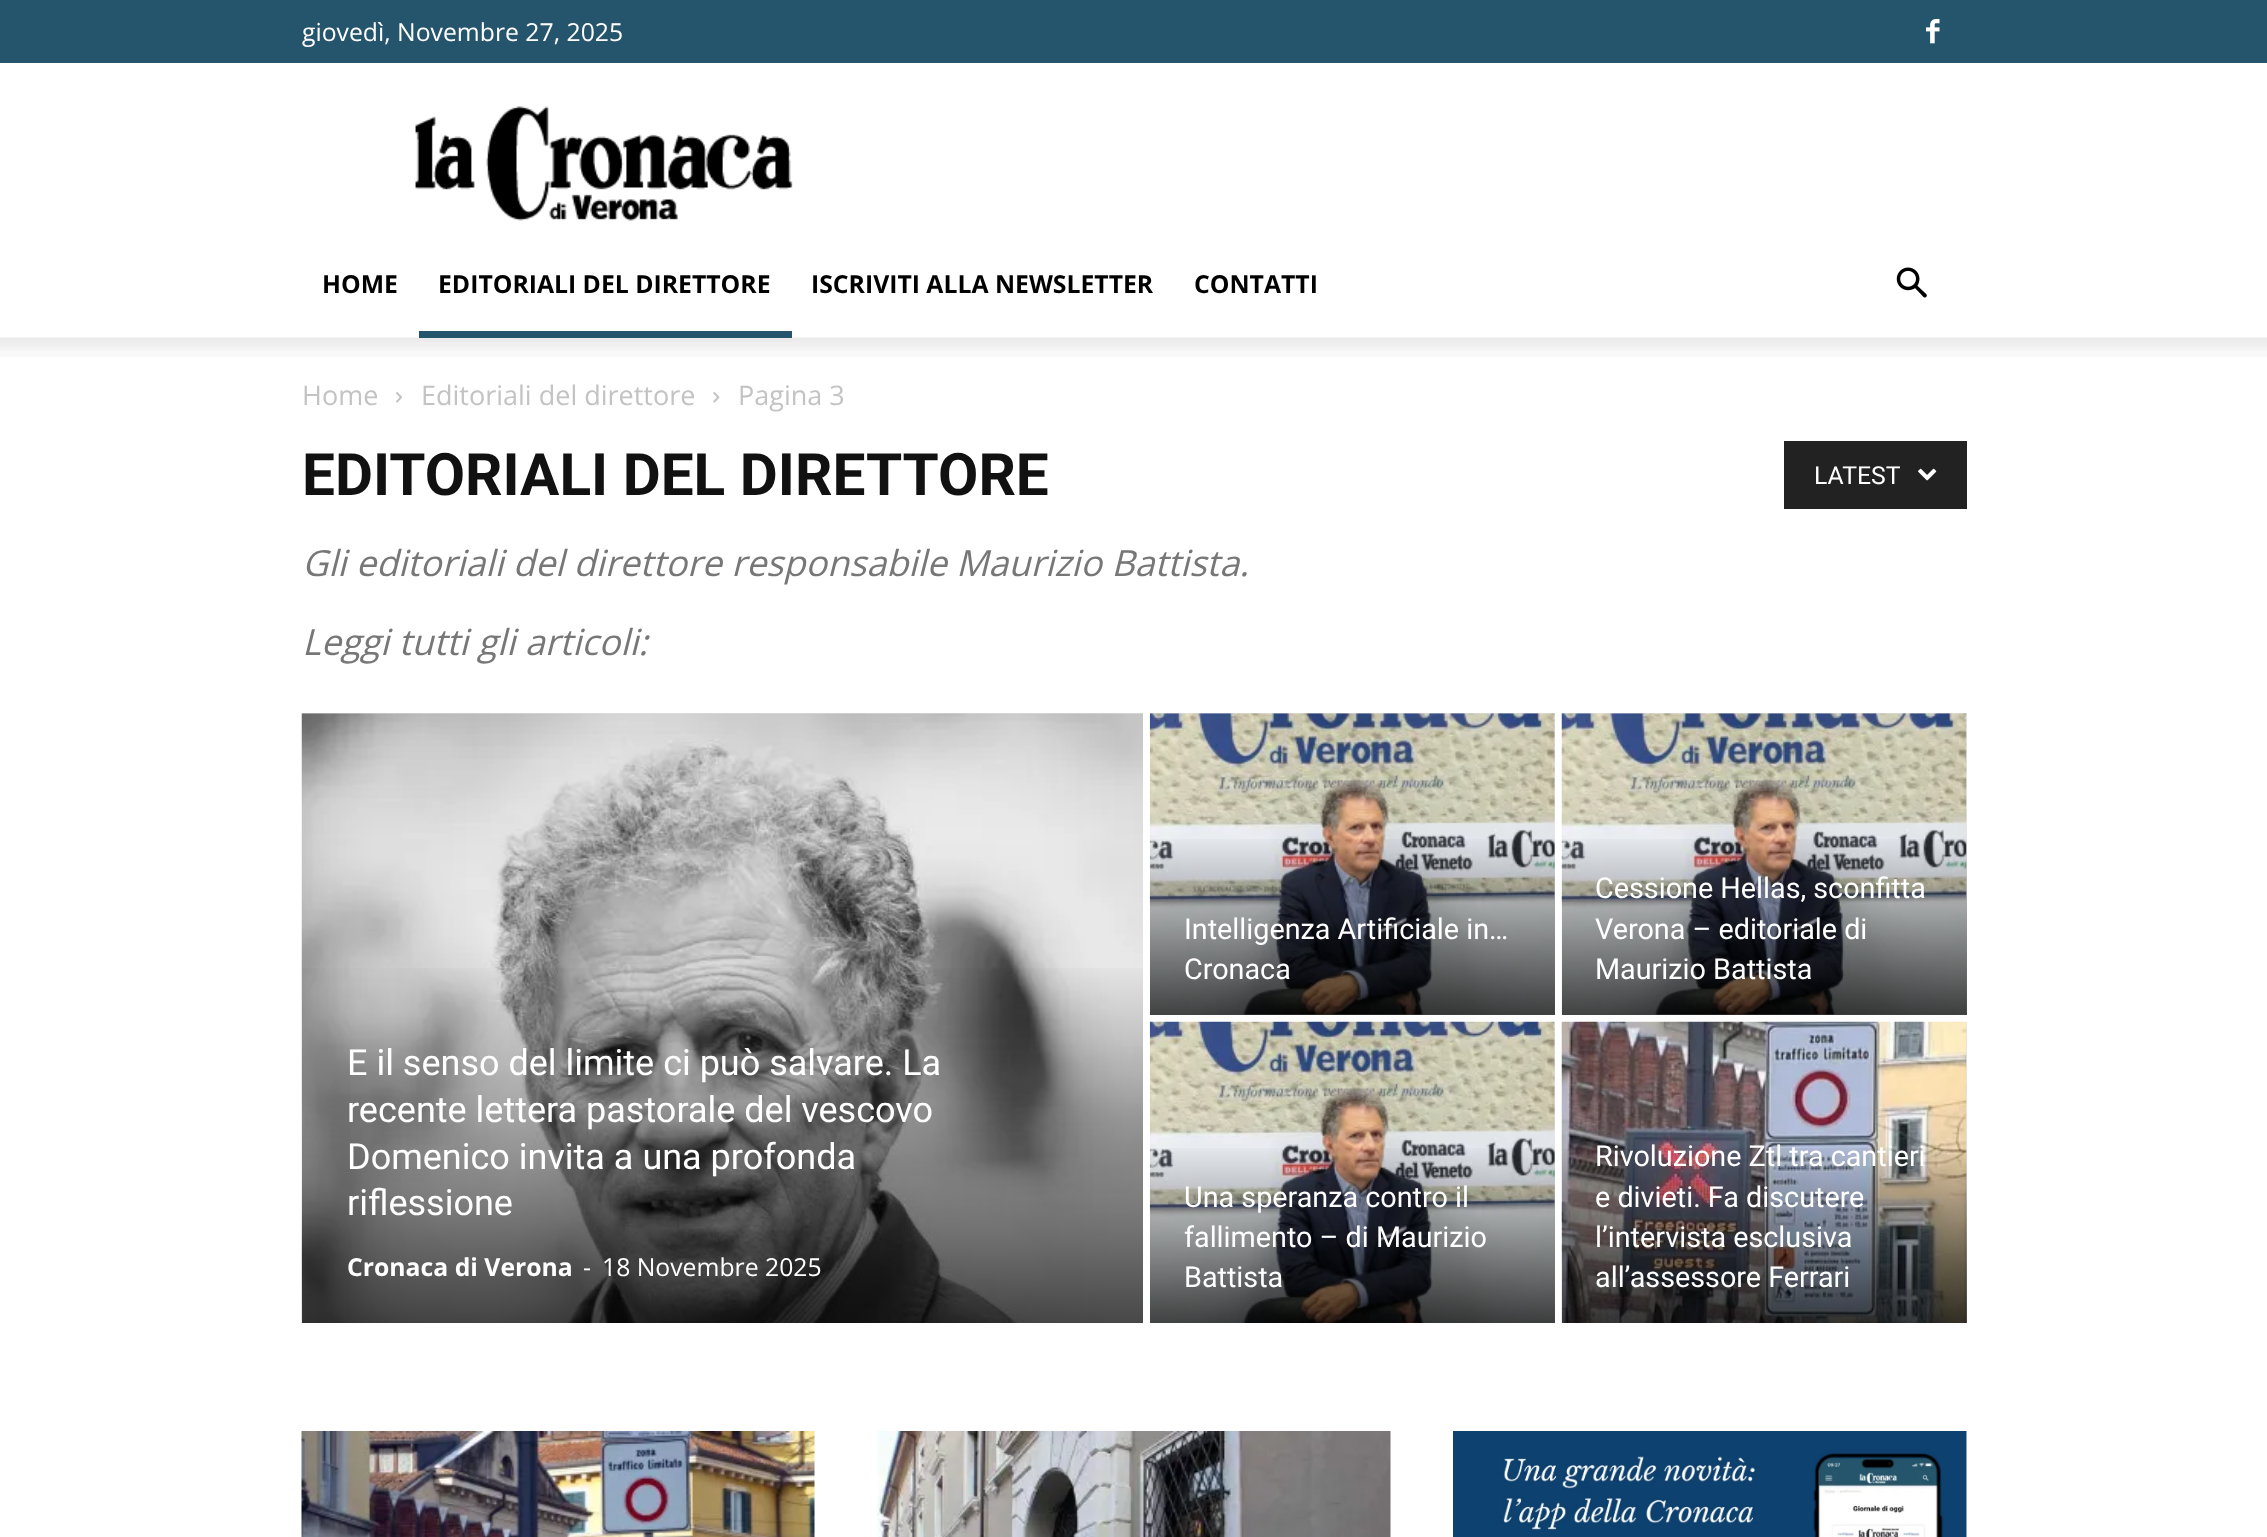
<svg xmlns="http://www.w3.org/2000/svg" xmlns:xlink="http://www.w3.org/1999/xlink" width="2267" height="1537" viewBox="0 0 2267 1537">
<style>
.cls-1{font:24.75px Open Sans;fill:#ffffff}
.cls-2{font:bold 24.75px Open Sans;fill:#000000}
.cls-3{font:27px Open Sans;fill:#c3c3c3}
.cls-4{font:bold 58.5px Roboto;fill:#111111}
.cls-5{font:italic 36px Open Sans;fill:#777777}
.cls-6{font:24.75px Roboto;fill:#ffffff}
.cls-7{font:36px Roboto;fill:#ffffff}
.cls-8{font:bold 24.75px Open Sans;fill:#ffffff}
.cls-9{font:28.75px Roboto;fill:#ffffff}
</style>
<defs>
<linearGradient id="g1" gradientUnits="userSpaceOnUse" x1="722" y1="713" x2="722" y2="1323"><stop offset="0.4" stop-color="#000000" stop-opacity="0"/><stop offset="1" stop-color="#000000" stop-opacity="0.7"/></linearGradient>
<linearGradient id="g2" gradientUnits="userSpaceOnUse" x1="1352" y1="713" x2="1352" y2="1015"><stop offset="0.4" stop-color="#000000" stop-opacity="0"/><stop offset="1" stop-color="#000000" stop-opacity="0.7"/></linearGradient>
<linearGradient id="g3" gradientUnits="userSpaceOnUse" x1="1764" y1="713" x2="1764" y2="1015"><stop offset="0.4" stop-color="#000000" stop-opacity="0"/><stop offset="1" stop-color="#000000" stop-opacity="0.7"/></linearGradient>
<linearGradient id="g4" gradientUnits="userSpaceOnUse" x1="1352" y1="1022" x2="1352" y2="1323"><stop offset="0.4" stop-color="#000000" stop-opacity="0"/><stop offset="1" stop-color="#000000" stop-opacity="0.7"/></linearGradient>
<linearGradient id="g5" gradientUnits="userSpaceOnUse" x1="1764" y1="1022" x2="1764" y2="1323"><stop offset="0.4" stop-color="#000000" stop-opacity="0"/><stop offset="1" stop-color="#000000" stop-opacity="0.7"/></linearGradient>
</defs>
<rect width="100%" height="100%" fill="#ffffff"/>
<rect fill="#25546d" x="0" y="0" width="2267" height="63"/>
<image xlink:href="image0.png" x="1926" y="19" width="14" height="25"/>
<image xlink:href="image1.png" x="415" y="106" width="378" height="115"/>
<image xlink:href="image3.png" x="0" y="337" width="2267" height="20"/>
<rect fill="#25546d" x="419" y="331" width="373" height="7"/>
<image xlink:href="image2.png" x="1896" y="267" width="31" height="31"/>
<image xlink:href="image4.png" x="396" y="392" width="6" height="11"/>
<image xlink:href="image5.png" x="713" y="392" width="7" height="11"/>
<rect fill="#222222" x="1784" y="441" width="183" height="68"/>
<image xlink:href="image6.png" x="1918" y="468" width="19" height="13"/>
<rect fill="#e5e5e5" x="302" y="713" width="841" height="1"/>
<image xlink:href="image7.png" x="301" y="713" width="842" height="610"/>
<rect fill="url(#g1)" x="302" y="968" width="841" height="355"/>
<rect fill="#e5e5e5" x="1150" y="713" width="405" height="302"/>
<image xlink:href="image8.png" x="1149" y="713" width="406" height="302"/>
<rect fill="url(#g2)" x="1150" y="839" width="405" height="176"/>
<rect fill="#e5e5e5" x="1562" y="713" width="405" height="302"/>
<image xlink:href="image9.png" x="1561" y="713" width="406" height="302"/>
<rect fill="url(#g3)" x="1562" y="839" width="405" height="176"/>
<rect fill="#e5e5e5" x="1554" y="1022" width="1" height="301"/>
<image xlink:href="image10.png" x="1149" y="1021" width="406" height="302"/>
<rect fill="url(#g4)" x="1150" y="1148" width="405" height="175"/>
<rect fill="#e5e5e5" x="1966" y="1022" width="1" height="301"/>
<image xlink:href="image11.png" x="1561" y="1021" width="406" height="302"/>
<rect fill="url(#g5)" x="1562" y="1148" width="405" height="175"/>
<image xlink:href="image12.png" x="301" y="1431" width="514" height="106"/>
<image xlink:href="image13.png" x="877" y="1431" width="514" height="106"/>
<image xlink:href="image14.png" x="1453" y="1431" width="514" height="106"/>
<text class="cls-1" x="302" y="41">giovedì, Novembre 27, 2025</text>
<text class="cls-2" x="322" y="293">HOME</text>
<text class="cls-2" x="438" y="293">EDITORIALI DEL DIRETTORE</text>
<text class="cls-2" x="811" y="293">ISCRIVITI ALLA NEWSLETTER</text>
<text class="cls-2" x="1194" y="293">CONTATTI</text>
<text class="cls-3" x="302" y="405">Home</text>
<text class="cls-3" x="421" y="405">Editoriali del direttore</text>
<text class="cls-3" x="738" y="405">Pagina 3</text>
<text class="cls-4" x="302" y="495">EDITORIALI DEL DIRETTORE</text>
<text class="cls-5" x="302" y="576">Gli editoriali del direttore responsabile Maurizio Battista.</text>
<text class="cls-5" x="302" y="655">Leggi tutti gli articoli:</text>
<text class="cls-6" x="1814" y="484">LATEST</text>
<text class="cls-7"><tspan x="347" y="1075">E il senso del limite ci può salvare. La</tspan><tspan x="347" y="1122">recente lettera pastorale del vescovo</tspan><tspan x="347" y="1169">Domenico invita a una profonda</tspan><tspan x="347" y="1215">riflessione</tspan></text>
<text class="cls-8" x="347" y="1276">Cronaca di Verona</text>
<text class="cls-1" x="583" y="1276">-</text>
<text class="cls-1" x="602" y="1276">18 Novembre 2025</text>
<text class="cls-9"><tspan x="1184" y="939">Intelligenza Artificiale in…</tspan><tspan x="1184" y="979">Cronaca</tspan></text>
<text class="cls-9"><tspan x="1595" y="898">Cessione Hellas, sconfitta</tspan><tspan x="1595" y="939">Verona – editoriale di</tspan><tspan x="1595" y="979">Maurizio Battista</tspan></text>
<text class="cls-9"><tspan x="1184" y="1207">Una speranza contro il</tspan><tspan x="1184" y="1247">fallimento – di Maurizio</tspan><tspan x="1184" y="1287">Battista</tspan></text>
<text class="cls-9"><tspan x="1595" y="1166">Rivoluzione Ztl tra cantieri</tspan><tspan x="1595" y="1207">e divieti. Fa discutere</tspan><tspan x="1595" y="1247">l’intervista esclusiva</tspan><tspan x="1595" y="1287">all’assessore Ferrari</tspan></text>
</svg>
